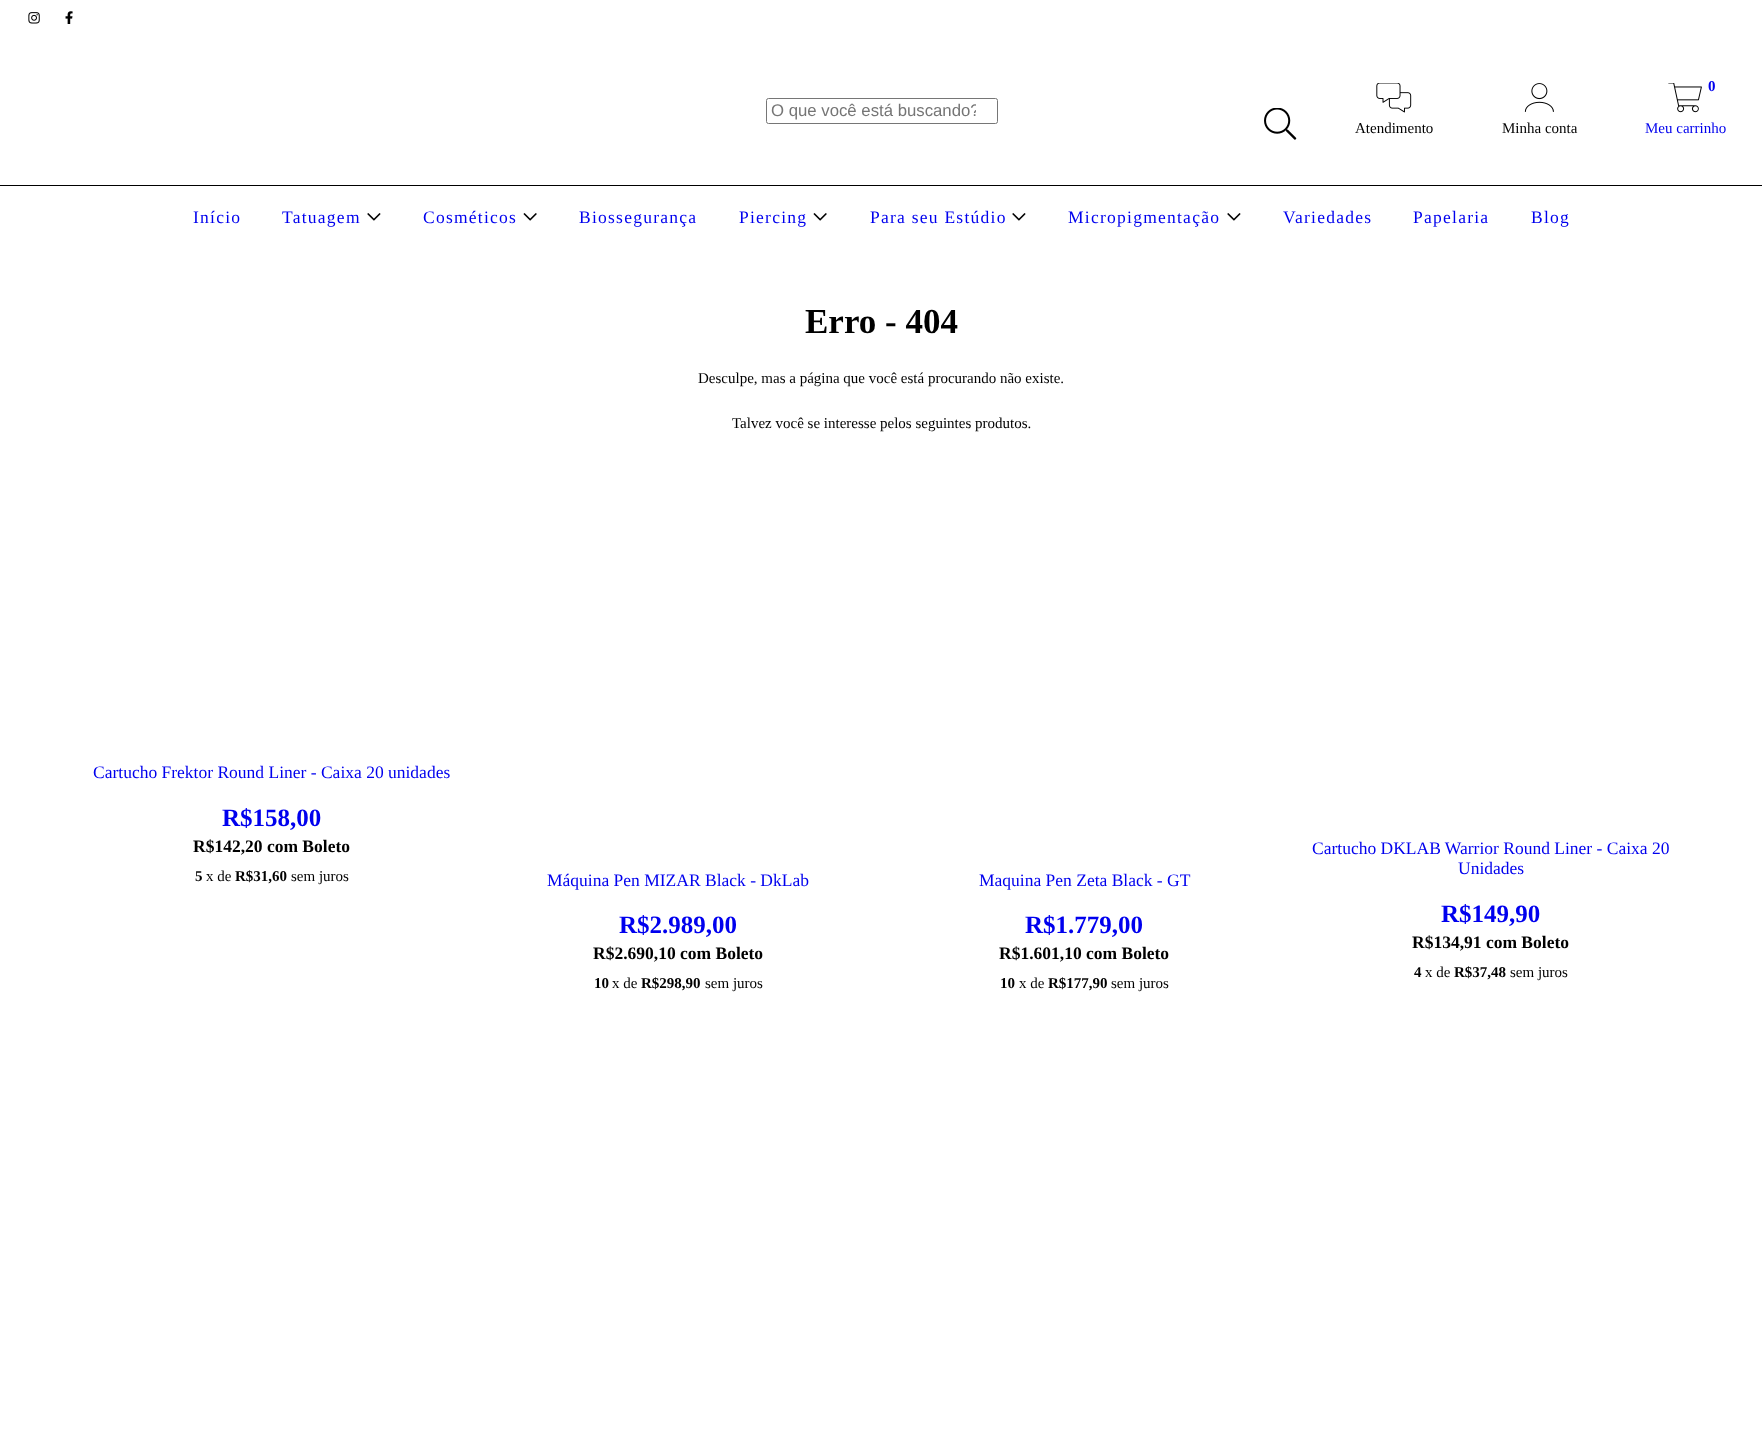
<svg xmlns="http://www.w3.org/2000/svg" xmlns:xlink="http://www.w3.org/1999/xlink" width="1762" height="1432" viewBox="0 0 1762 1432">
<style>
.cls-1{font:16.75px Liberation Sans;fill:#757575}
.cls-2{font:15px Liberation Serif;fill:#000000}
.cls-3{font:bold 15px Liberation Serif;fill:#0000ee}
.cls-4{font:15px Liberation Serif;fill:#0000ee}
.cls-5{font:17.5px Liberation Serif;letter-spacing:1.25px;fill:#0000ee}
.cls-6{font:bold 35px Liberation Serif;fill:#000000}
.cls-7{font:17.5px Liberation Serif;fill:#0000ee}
.cls-8{font:bold 25px Liberation Serif;fill:#0000ee}
.cls-9{font:bold 17.5px Liberation Serif;fill:#000000}
.cls-10{font:bold 15px Liberation Serif;fill:#000000}
</style>
<defs>
<clipPath id="clip1"><rect x="771" y="101" width="205" height="19"/></clipPath>
</defs>
<rect width="100%" height="100%" fill="#ffffff"/>
<image xlink:href="image0.png" x="28" y="12" width="12" height="12"/>
<image xlink:href="image1.png" x="65" y="11" width="8" height="13"/>
<rect fill="none" stroke="#767676" x="766.5" y="98.5" width="231" height="25" rx="2"/>
<image xlink:href="image2.png" x="1264" y="108" width="33" height="32"/>
<image xlink:href="image3.png" x="1376" y="83" width="36" height="30"/>
<image xlink:href="image4.png" x="1524" y="83" width="30" height="29"/>
<image xlink:href="image5.png" x="1668" y="83" width="34" height="30"/>
<rect fill="#000000" x="0" y="185" width="1762" height="1"/>
<image xlink:href="image6.png" x="367" y="213" width="14" height="8"/>
<image xlink:href="image7.png" x="523" y="213" width="14" height="8"/>
<image xlink:href="image7.png" x="813" y="213" width="14" height="8"/>
<image xlink:href="image6.png" x="1012" y="213" width="14" height="8"/>
<image xlink:href="image6.png" x="1227" y="213" width="14" height="8"/>
<g clip-path="url(#clip1)">
<text class="cls-1" x="771" y="116">O que você está buscando?</text>
</g>
<text class="cls-2" x="1355" y="133">Atendimento</text>
<text class="cls-2" x="1502" y="133">Minha conta</text>
<text class="cls-3" x="1708" y="91">0</text>
<text class="cls-4" x="1645" y="133">Meu carrinho</text>
<text class="cls-5" x="193" y="223">Início</text>
<text class="cls-5" x="282" y="223">Tatuagem</text>
<text class="cls-5" x="423" y="223">Cosméticos</text>
<text class="cls-5" x="579" y="223">Biossegurança</text>
<text class="cls-5" x="739" y="223">Piercing</text>
<text class="cls-5" x="870" y="223">Para seu Estúdio</text>
<text class="cls-5" x="1068" y="223">Micropigmentação</text>
<text class="cls-5" x="1283" y="223">Variedades</text>
<text class="cls-5" x="1413" y="223">Papelaria</text>
<text class="cls-5" x="1531" y="223">Blog</text>
<text class="cls-6" x="805" y="333">Erro - 404</text>
<text class="cls-2" x="698" y="383">Desculpe, mas a página que você está procurando não existe.</text>
<text class="cls-2" x="732" y="428">Talvez você se interesse pelos seguintes produtos.</text>
<text class="cls-7" x="93" y="778">Cartucho Frektor Round Liner - Caixa 20 unidades</text>
<text class="cls-8" x="222" y="826">R$158,00</text>
<text class="cls-9" x="193" y="852">R$142,20 com Boleto</text>
<text class="cls-10" x="195" y="881">5</text>
<text class="cls-2" x="206" y="881">x de</text>
<text class="cls-10" x="235" y="881">R$31,60</text>
<text class="cls-2" x="291" y="881">sem juros</text>
<text class="cls-7" x="547" y="886">Máquina Pen MIZAR Black - DkLab</text>
<text class="cls-8" x="619" y="933">R$2.989,00</text>
<text class="cls-9" x="593" y="959">R$2.690,10 com Boleto</text>
<text class="cls-10" x="594" y="988">10</text>
<text class="cls-2" x="612" y="988">x de</text>
<text class="cls-10" x="641" y="988">R$298,90</text>
<text class="cls-2" x="705" y="988">sem juros</text>
<text class="cls-7" x="979" y="886">Maquina Pen Zeta Black - GT</text>
<text class="cls-8" x="1025" y="933">R$1.779,00</text>
<text class="cls-9" x="999" y="959">R$1.601,10 com Boleto</text>
<text class="cls-10" x="1000" y="988">10</text>
<text class="cls-2" x="1019" y="988">x de</text>
<text class="cls-10" x="1048" y="988">R$177,90</text>
<text class="cls-2" x="1111" y="988">sem juros</text>
<text class="cls-7" x="1312" y="854">Cartucho DKLAB Warrior Round Liner - Caixa 20</text>
<text class="cls-7" x="1458" y="874">Unidades</text>
<text class="cls-8" x="1441" y="922">R$149,90</text>
<text class="cls-9" x="1412" y="948">R$134,91 com Boleto</text>
<text class="cls-10" x="1414" y="977">4</text>
<text class="cls-2" x="1425" y="977">x de</text>
<text class="cls-10" x="1454" y="977">R$37,48</text>
<text class="cls-2" x="1510" y="977">sem juros</text>
</svg>
